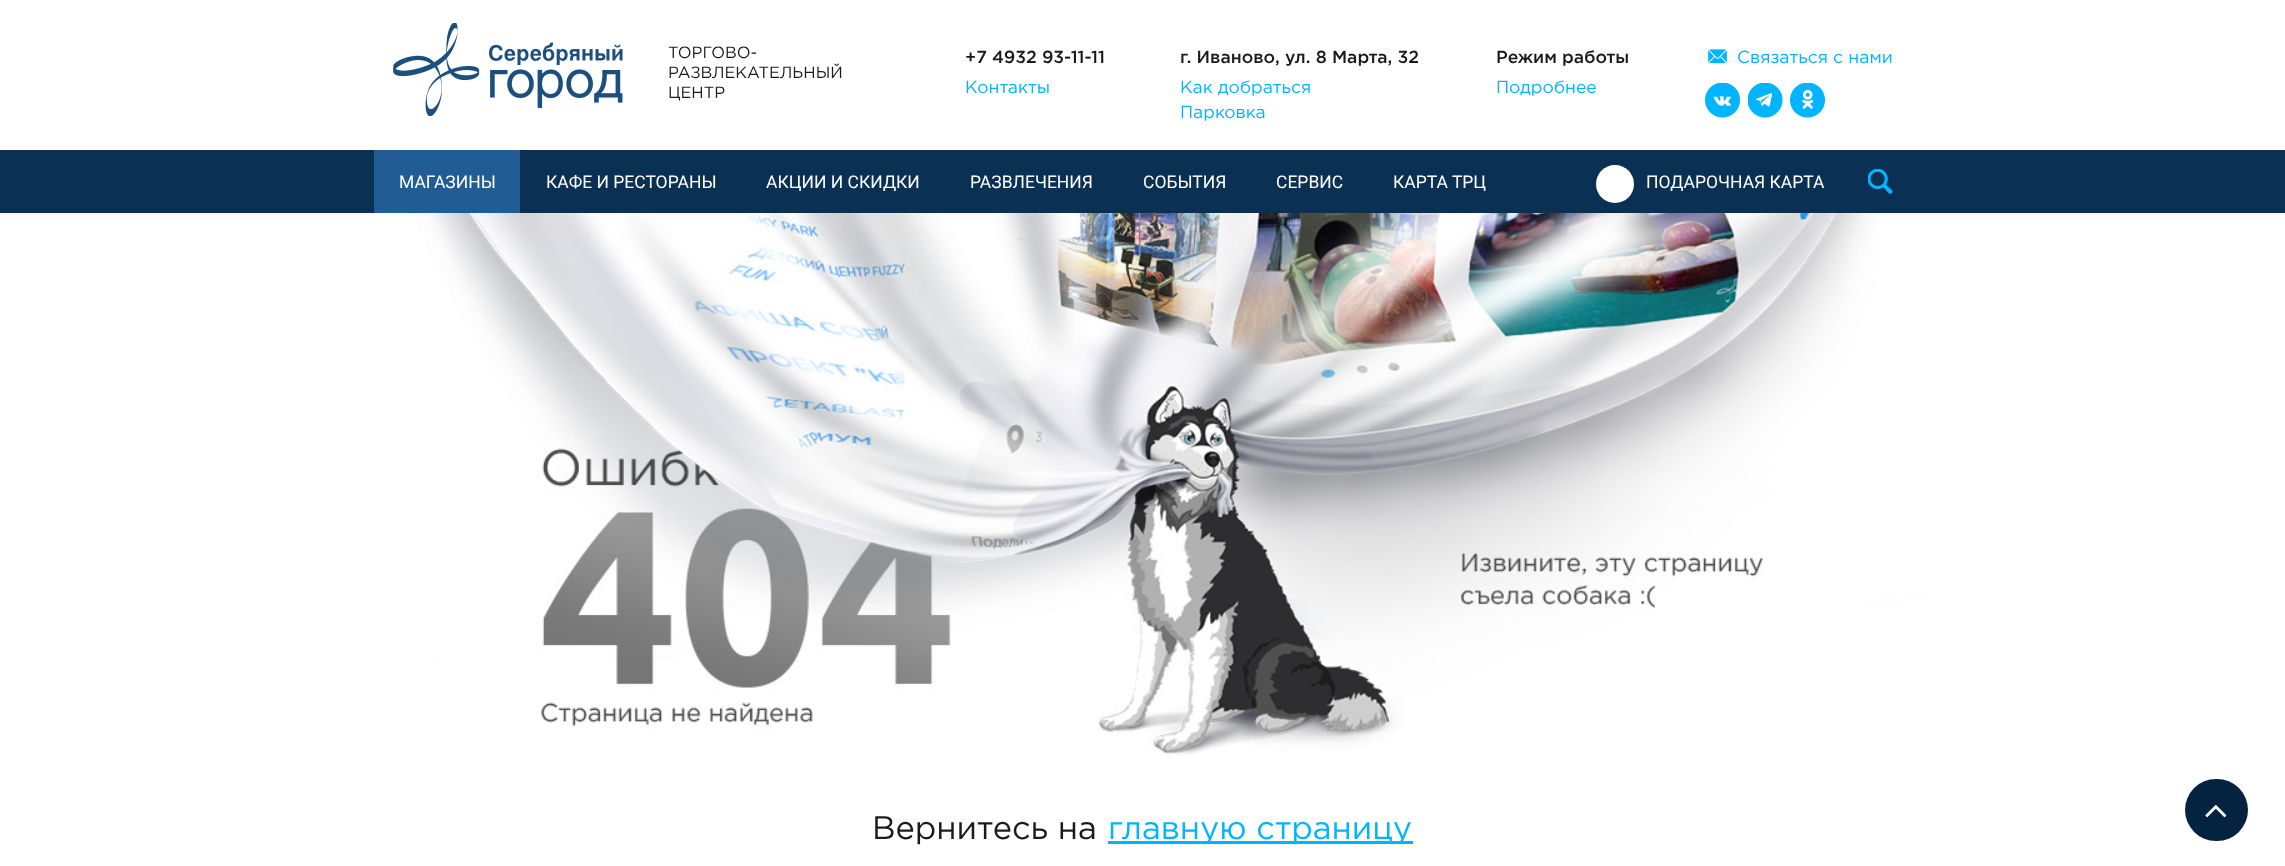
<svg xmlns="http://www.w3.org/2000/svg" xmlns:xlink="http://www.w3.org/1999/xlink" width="2285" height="866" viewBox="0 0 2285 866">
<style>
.cls-1{font:16.25px Gotham;fill:#1a1a1a}
.cls-2{font:500 17.5px Gotham;fill:#1a1a1a}
.cls-3{font:17.5px Gotham;fill:#00b4ff}
.cls-4{font:17.5px Roboto;fill:#ffffff}
.cls-5{font:32.5px Gotham;fill:#1a1a1a}
.cls-6{font:32.5px Gotham;fill:#00b4ff}
</style>
<rect width="100%" height="100%" fill="#ffffff"/>
<image xlink:href="image0.png" x="393" y="23" width="230" height="93"/>
<image xlink:href="image1.png" x="1708" y="49" width="19" height="15"/>
<image xlink:href="image2.png" x="1705" y="83" width="35" height="35"/>
<image xlink:href="image3.png" x="1748" y="83" width="35" height="35"/>
<image xlink:href="image4.png" x="1790" y="83" width="35" height="35"/>
<rect fill="#0a3054" x="0" y="150" width="2285" height="63"/>
<rect fill="#215c94" x="374" y="150" width="146" height="63"/>
<circle fill="#ffffff" cx="1615" cy="184" r="19"/>
<image xlink:href="image5.png" x="1868" y="169" width="25" height="25"/>
<image xlink:href="image6.png" x="347" y="213" width="1585" height="543"/>
<rect fill="#00b4ff" x="1108" y="841" width="305" height="3"/>
<rect fill="#042340" x="2185" y="779" width="63" height="62" rx="31"/>
<image xlink:href="image7.png" x="2205" y="805" width="22" height="13"/>
<text class="cls-1"><tspan x="668" y="58">ТОРГОВО-</tspan><tspan x="668" y="78">РАЗВЛЕКАТЕЛЬНЫЙ</tspan><tspan x="668" y="98">ЦЕНТР</tspan></text>
<text class="cls-2" x="965" y="63">+7 4932 93-11-11</text>
<text class="cls-3" x="965" y="93">Контакты</text>
<text class="cls-2" x="1180" y="63">г. Иваново, ул. 8 Марта, 32</text>
<text class="cls-3"><tspan x="1180" y="93">Как добраться</tspan><tspan x="1180" y="118">Парковка</tspan></text>
<text class="cls-2" x="1496" y="63">Режим работы</text>
<text class="cls-3" x="1496" y="93">Подробнее</text>
<text class="cls-3" x="1737" y="63">Связаться с нами</text>
<text class="cls-4" x="399" y="188">МАГАЗИНЫ</text>
<text class="cls-4" x="546" y="188">КАФЕ И РЕСТОРАНЫ</text>
<text class="cls-4" x="766" y="188">АКЦИИ И СКИДКИ</text>
<text class="cls-4" x="970" y="188">РАЗВЛЕЧЕНИЯ</text>
<text class="cls-4" x="1143" y="188">СОБЫТИЯ</text>
<text class="cls-4" x="1276" y="188">СЕРВИС</text>
<text class="cls-4" x="1393" y="188">КАРТА ТРЦ</text>
<text class="cls-4" x="1646" y="188">ПОДАРОЧНАЯ КАРТА</text>
<text class="cls-5" x="872" y="839">Вернитесь на</text>
<text class="cls-6" x="1108" y="839">главную страницу</text>
</svg>
